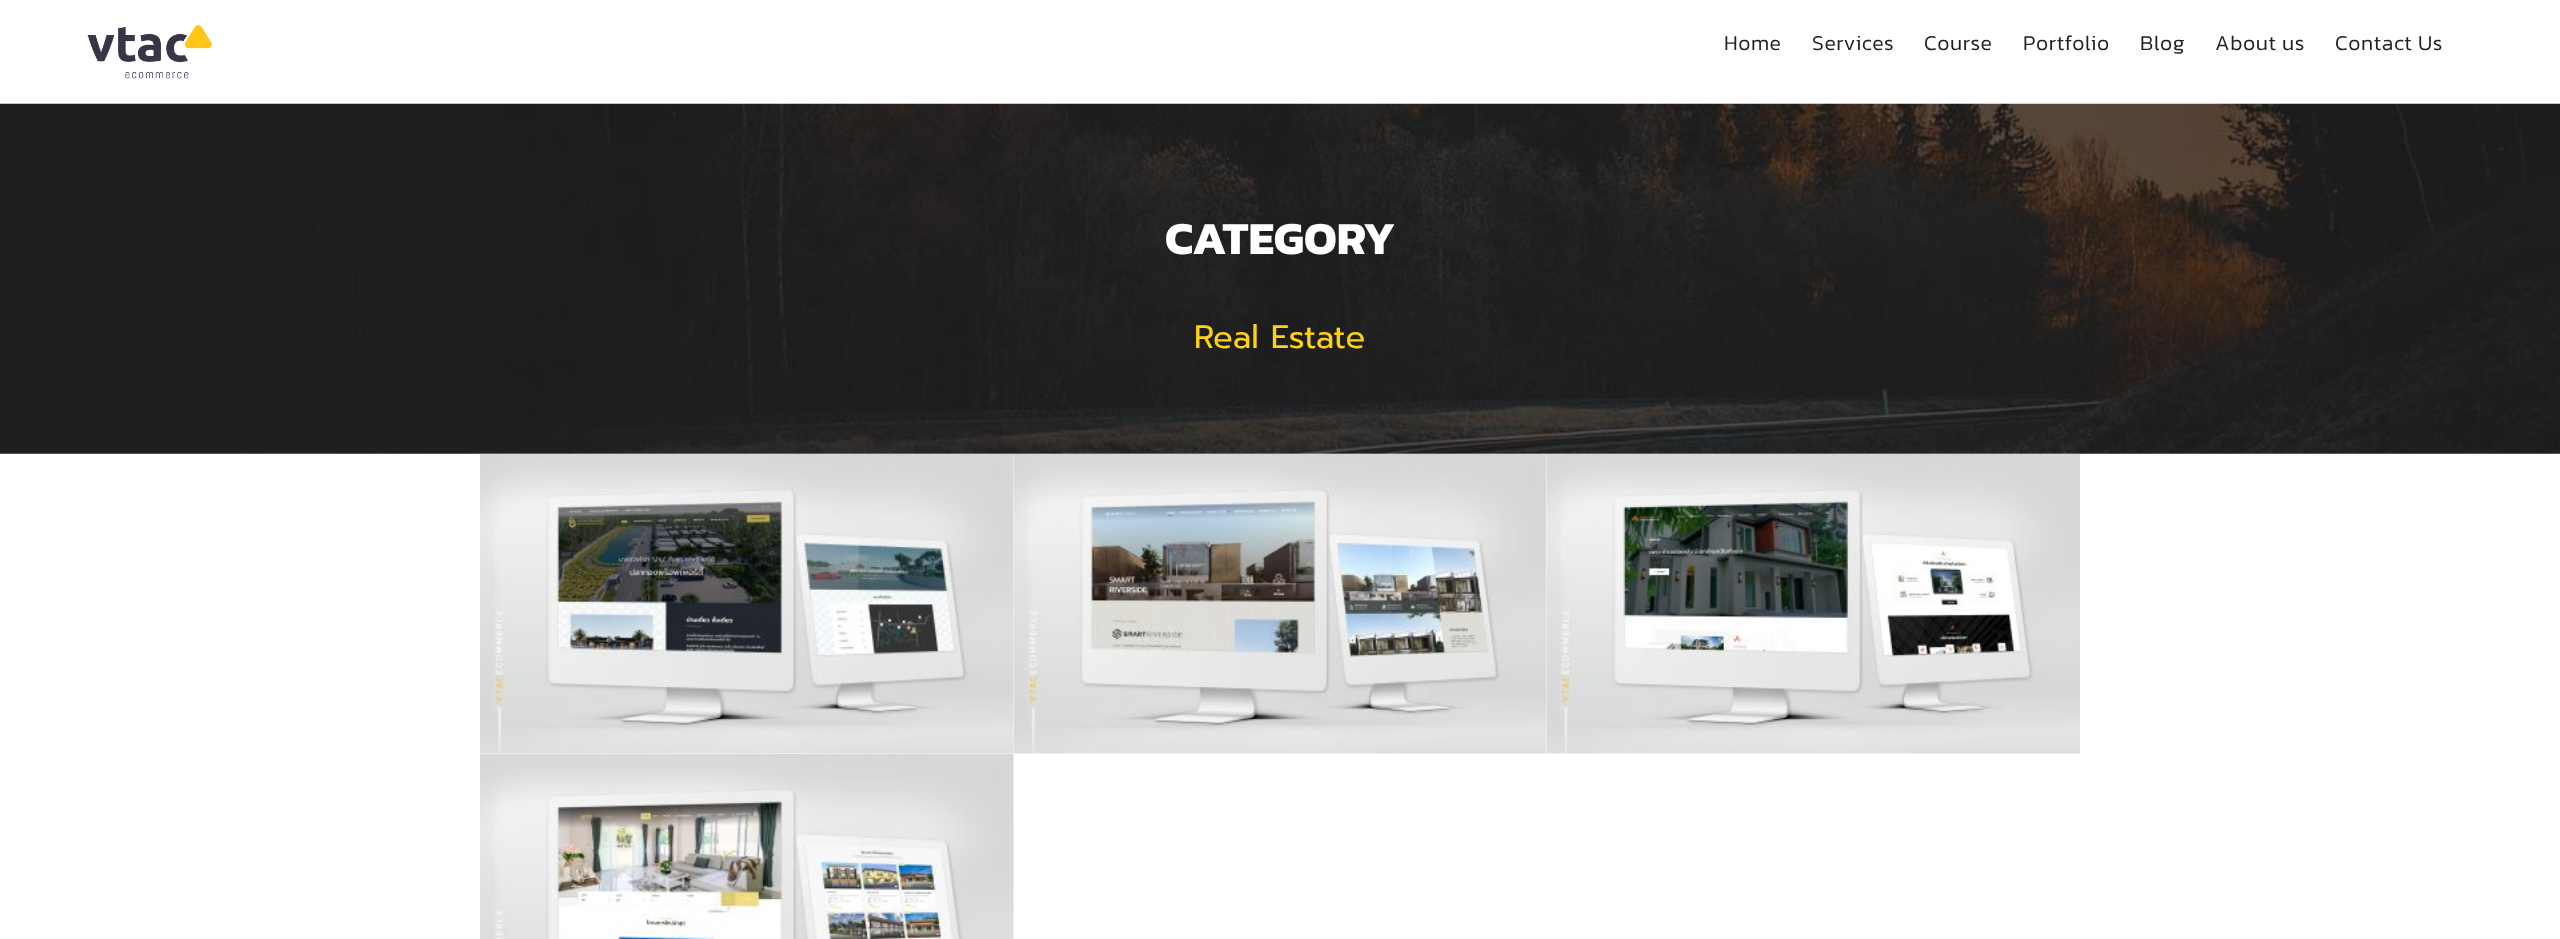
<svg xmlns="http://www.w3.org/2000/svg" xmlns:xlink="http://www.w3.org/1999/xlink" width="2560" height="939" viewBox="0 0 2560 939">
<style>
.cls-1{font:300 21.25px Kanit;letter-spacing:0.6px;fill:#212121}
.cls-2{font:bold 46.25px Kanit;fill:#ffffff}
.cls-3{font:32.5px Prompt;fill:#ffd115}
</style>
<rect width="100%" height="100%" fill="#ffffff"/>
<image xlink:href="image0.png" x="87" y="25" width="125" height="54"/>
<image xlink:href="image1.png" x="0" y="103" width="2560" height="351"/>
<image xlink:href="image2.png" x="480" y="453" width="534" height="301"/>
<image xlink:href="image3.png" x="1014" y="453" width="532" height="301"/>
<image xlink:href="image4.png" x="1546" y="453" width="534" height="301"/>
<image xlink:href="image5.png" x="480" y="754" width="534" height="185"/>
<text class="cls-1" x="1724" y="50">Home</text>
<text class="cls-1" x="1812" y="50">Services</text>
<text class="cls-1" x="1924" y="50">Course</text>
<text class="cls-1" x="2023" y="50">Portfolio</text>
<text class="cls-1" x="2140" y="50">Blog</text>
<text class="cls-1" x="2215" y="50">About us</text>
<text class="cls-1" x="2335" y="50">Contact Us</text>
<text class="cls-2" x="1165" y="254">CATEGORY</text>
<text class="cls-3" x="1194" y="348">Real Estate</text>
</svg>
